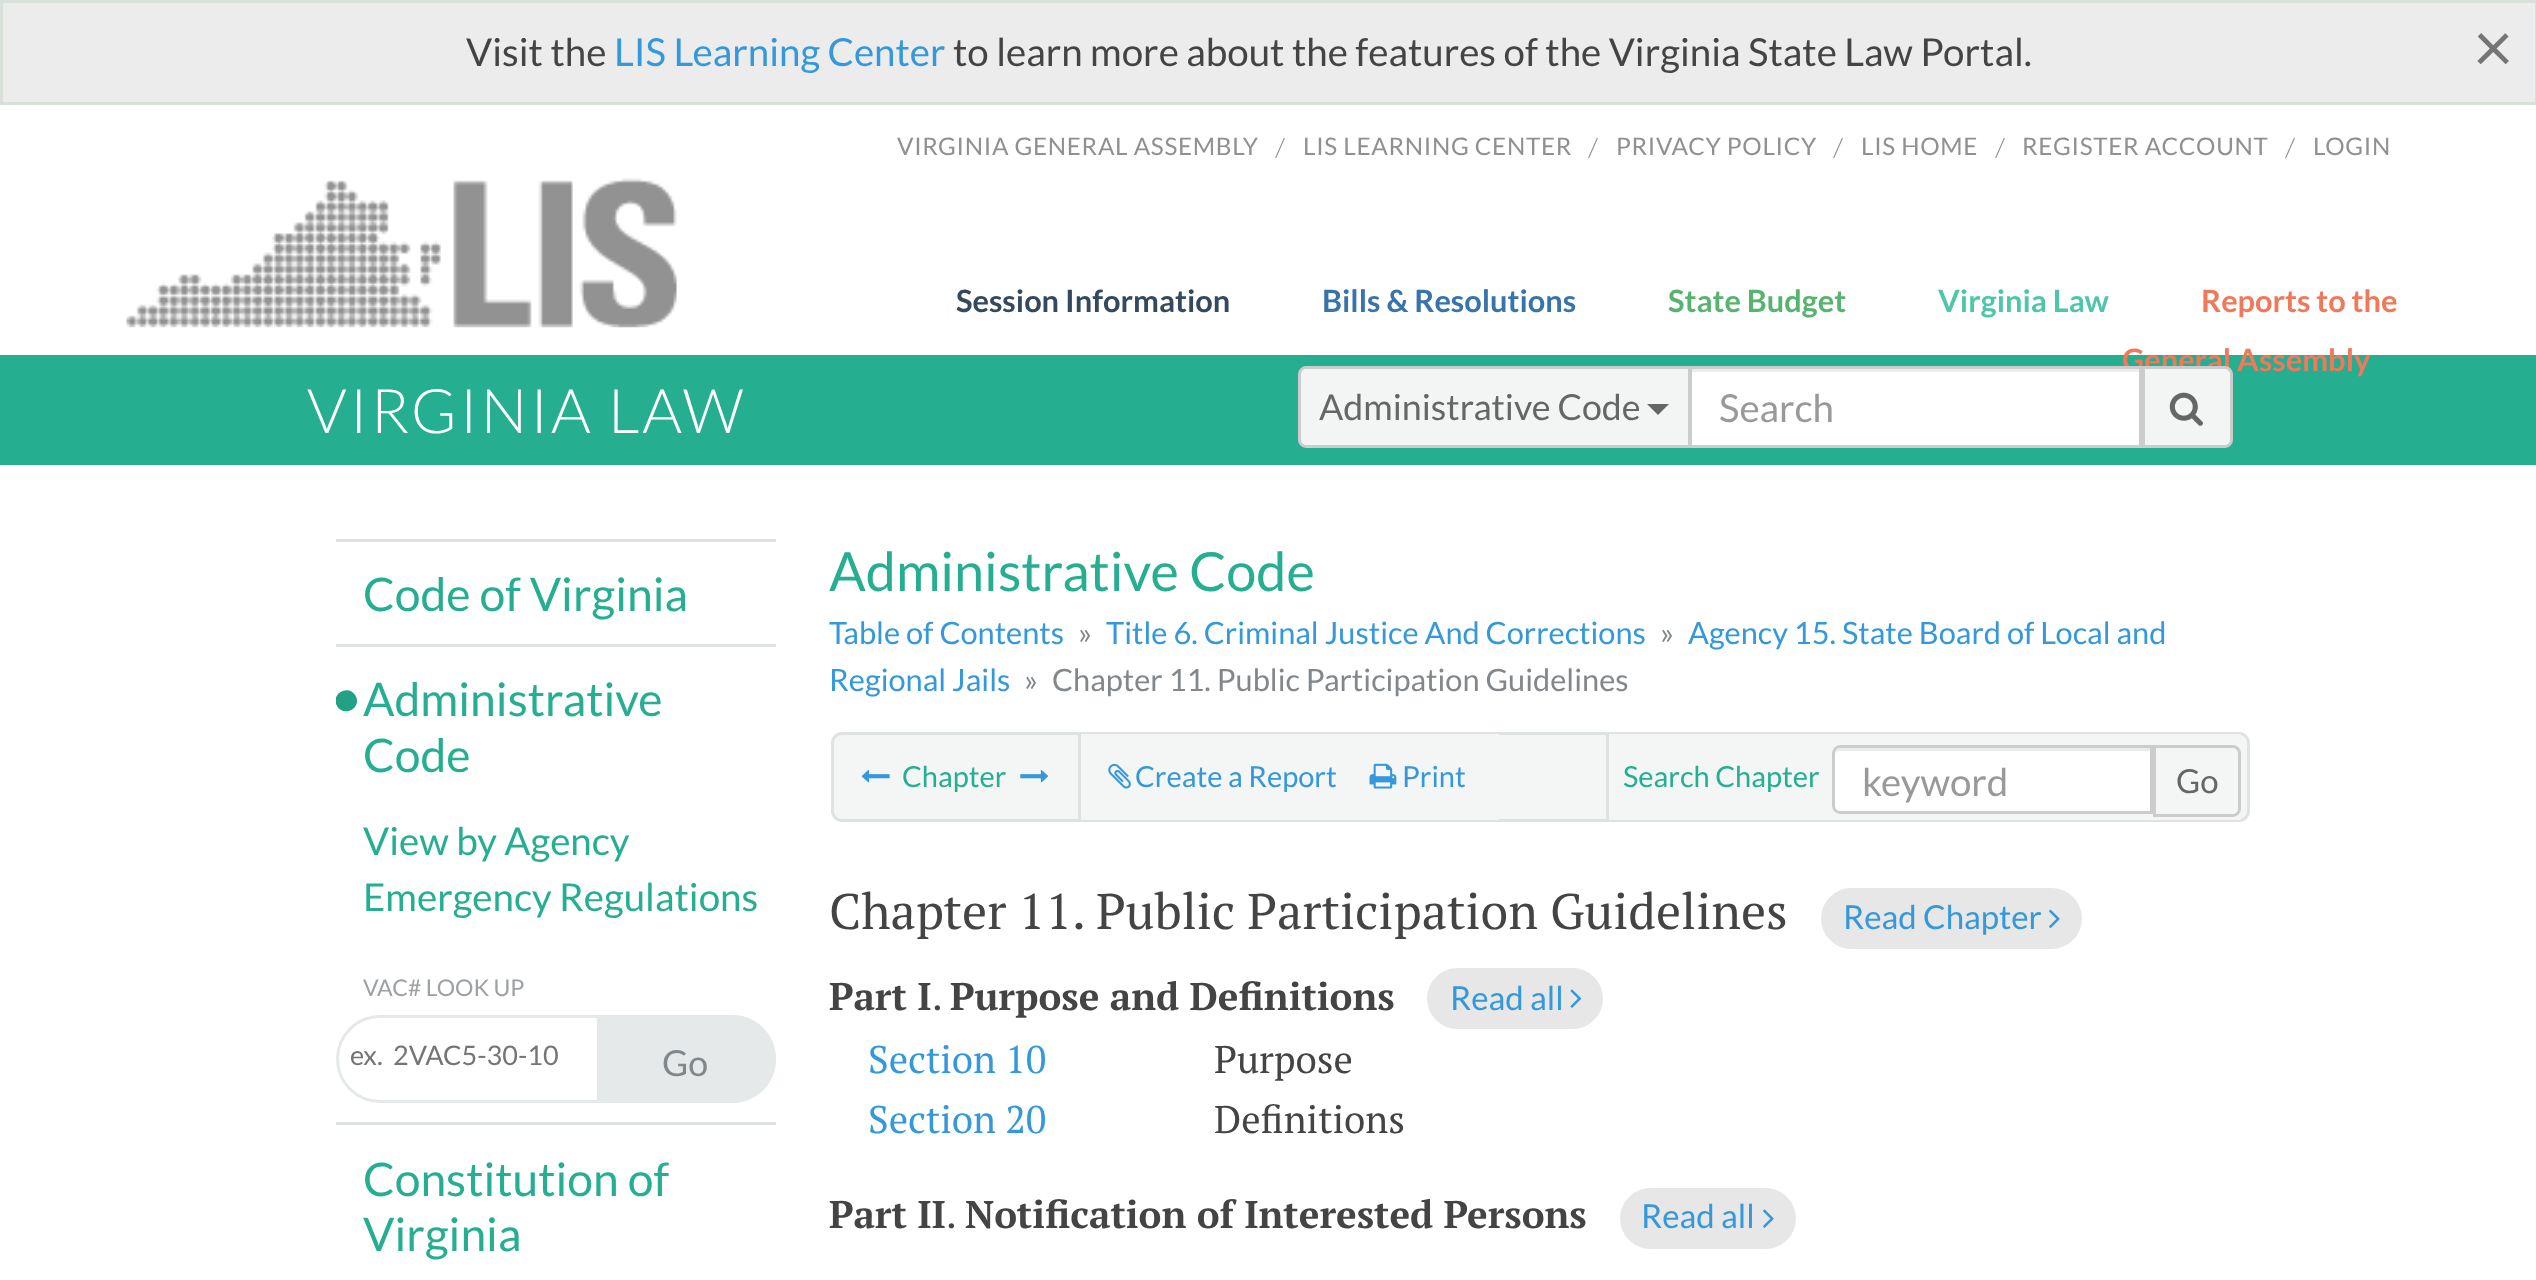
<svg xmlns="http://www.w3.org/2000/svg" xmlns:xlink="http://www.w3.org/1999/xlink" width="2536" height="1280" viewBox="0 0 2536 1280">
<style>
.cls-1{font:38.5px Lato;fill:#444444}
.cls-2{font:38.5px Lato;fill:#3498db}
.cls-3{font:70px Lato;fill:#757575}
.cls-4{font:24.25px Lato;letter-spacing:0.7px;fill:#8f9090}
.cls-5{font:24.25px PT Serif;fill:#8f9090}
.cls-6{font:bold 30.75px Lato;fill:#34495e}
.cls-7{font:bold 30.75px Lato;fill:#3774ac}
.cls-8{font:bold 30.75px Lato;fill:#57b36f}
.cls-9{font:bold 30.75px Lato;fill:#4fc6ac}
.cls-10{font:bold 30.75px Lato;fill:#ef795a}
.cls-11{font:300 61.5px Lato;letter-spacing:2.75px;fill:#ffffff}
.cls-12{font:35.75px Lato;fill:#666666}
.cls-13{font:38.5px Lato;fill:#999999}
.cls-14{font:46.25px Lato;fill:#26ae90}
.cls-15{font:38.5px Lato;fill:#26ae90}
.cls-16{font:23px Lato;fill:#9da1a3}
.cls-17{font:27px Lato;fill:#757575}
.cls-18{font:35.75px Lato;fill:#82878b}
.cls-19{font:54px Lato;fill:#26ae90}
.cls-20{font:30.75px Lato;fill:#3498db}
.cls-21{font:30.75px Lato;fill:#82878b}
.cls-22{font:29px Lato;fill:#26ae90}
.cls-23{font:29px Lato;fill:#3498db}
.cls-24{font:33px Lato;fill:#666666}
.cls-25{font:50px PT Serif;fill:#444444}
.cls-26{font:33px Lato;fill:#3498db}
.cls-27{font:bold 38.5px PT Serif;fill:#444444}
.cls-28{font:38.5px PT Serif;fill:#444444}
.cls-29{font:38.5px PT Serif;fill:#3498db}
</style>
<defs>
<clipPath id="clip1"><rect x="336" y="539" width="440" height="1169"/></clipPath>
</defs>
<rect width="100%" height="100%" fill="#ffffff"/>
<rect fill="#ececec" stroke="#d9e0da" stroke-width="3" x="1.5" y="1.5" width="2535" height="102"/>
<image xlink:href="image0.png" x="126" y="178" width="551" height="150"/>
<rect fill="#26ae90" x="0" y="355" width="2536" height="110"/>
<rect fill="#dee2e3" x="336" y="539" width="440" height="3"/>
<rect fill="#dee2e3" x="336" y="644" width="440" height="3"/>
<g clip-path="url(#clip1)">
<path fill="#23a185" d="M355.5 695.5C362.5 707.5 344 718 337 706C330 694 348.5 683.5 355.5 695.5Z"/>
</g>
<rect fill="none" stroke="#e5e9e9" stroke-width="3" x="337.5" y="1016.5" width="437" height="85" rx="42.5"/>
<path fill="#e5e9e9" d="M597 1015H732C756.5 1015 776 1034.5 776 1059C776 1083.5 756.5 1103 732 1103H597Z"/>
<rect fill="#dee2e3" x="336" y="1122" width="440" height="3"/>
<rect fill="#f4f5f5" stroke="#dee2e3" stroke-width="3" x="832.5" y="733.5" width="1416" height="87" rx="9.5"/>
<rect fill="#dee2e3" x="1078" y="734" width="3" height="86"/>
<image xlink:href="image2.png" x="861" y="770" width="29" height="13"/>
<image xlink:href="image3.png" x="1020" y="770" width="28" height="13"/>
<rect fill="#f4f5f5" x="1081" y="734" width="418" height="86"/>
<image xlink:href="image4.png" x="1108" y="763" width="23" height="26"/>
<image xlink:href="image5.png" x="1369" y="763" width="28" height="26"/>
<rect fill="#f4f5f5" x="1609" y="734" width="632" height="86"/>
<rect fill="#dee2e3" x="1606" y="734" width="3" height="86"/>
<path fill="#ffffff" d="M1840 745H2153V814H1840C1835.5 814 1832 810.5 1832 806V753C1832 748.5 1835.5 745 1840 745Z"/>
<path fill="#ececec" d="M1840 751H2150V811H2151V748H1839C1835 749 1834 753 1834 756C1834 753 1837 751 1840 751Z"/>
<path fill="none" stroke="#cccccc" stroke-width="3" d="M1840 746.5H2151.5V812.5H1840C1836.5 812.5 1833.5 809.5 1833.5 806V753C1833.5 749.5 1836.5 746.5 1840 746.5Z"/>
<path fill="none" stroke="#cccccc" stroke-width="3" d="M2154.5 746.5H2233C2236.5 746.5 2239.5 749.5 2239.5 753V809C2239.5 812.5 2236.5 815.5 2233 815.5H2154.5Z"/>
<rect fill="#e7e7e7" x="1821" y="888" width="261" height="61" rx="30.5"/>
<image xlink:href="image6.png" x="2049" y="909" width="11" height="19"/>
<rect fill="#e7e7e7" x="1427" y="968" width="176" height="61" rx="30.5"/>
<image xlink:href="image7.png" x="1570" y="989" width="12" height="19"/>
<rect fill="#e7e7e7" x="1620" y="1188" width="176" height="61" rx="30.5"/>
<image xlink:href="image8.png" x="1763" y="1209" width="11" height="19"/>
<text class="cls-1" x="466" y="66">Visit the</text>
<text class="cls-2" x="614" y="66">LIS Learning Center</text>
<text class="cls-1" x="953" y="66">to learn more about the features of the Virginia State Law Portal.</text>
<text class="cls-3" x="2473" y="72">×</text>
<text class="cls-4" x="897" y="155">VIRGINIA GENERAL ASSEMBLY</text>
<text class="cls-5" x="1276" y="155">/</text>
<text class="cls-4" x="1303" y="155">LIS LEARNING CENTER</text>
<text class="cls-5" x="1589" y="155">/</text>
<text class="cls-4" x="1616" y="155">PRIVACY POLICY</text>
<text class="cls-5" x="1834" y="155">/</text>
<text class="cls-4" x="1861" y="155">LIS HOME</text>
<text class="cls-5" x="1996" y="155">/</text>
<text class="cls-4" x="2022" y="155">REGISTER ACCOUNT</text>
<text class="cls-5" x="2286" y="155">/</text>
<text class="cls-4" x="2313" y="155">LOGIN</text>
<text class="cls-6" x="956" y="312">Session Information</text>
<text class="cls-7" x="1322" y="312">Bills &amp; Resolutions</text>
<text class="cls-8" x="1668" y="312">State Budget</text>
<text class="cls-9" x="1938" y="312">Virginia Law</text>
<text class="cls-10" x="2201" y="312">Reports to the</text>
<text class="cls-10" x="2122" y="371">General Assembly</text>
<text class="cls-11" x="307" y="433">VIRGINIA LAW</text>
<rect fill="#ffffff" x="1692" y="372" width="447" height="73"/>
<rect fill="#ececec" x="1691" y="369" width="449" height="3"/>
<rect fill="none" stroke="#cccccc" stroke-width="3" x="1690.5" y="367.5" width="450" height="79"/>
<path fill="#f3f5f5" stroke="#cccccc" stroke-width="3" d="M1306 367.5H1689.5V446.5H1306C1302.5 446.5 1299.5 443.5 1299.5 440V374C1299.5 370.5 1302.5 367.5 1306 367.5Z"/>
<path fill="#666666" d="M1647 404H1669L1658 415Z"/>
<text class="cls-12" x="1319" y="420">Administrative Code</text>
<text class="cls-13" x="1719" y="422">Search</text>
<path fill="#f3f5f5" stroke="#cccccc" stroke-width="3" d="M2143.5 367.5H2225C2228.5 367.5 2231.5 370.5 2231.5 374V440C2231.5 443.5 2228.5 446.5 2225 446.5H2143.5Z"/>
<image xlink:href="image1.png" x="2169" y="392" width="34" height="34"/>
<text class="cls-14" x="363" y="611">Code of Virginia</text>
<text class="cls-14"><tspan x="363" y="716">Administrative</tspan><tspan x="363" y="772">Code</tspan></text>
<text class="cls-15"><tspan x="363" y="855">View by Agency</tspan><tspan x="363" y="911">Emergency Regulations</tspan></text>
<text class="cls-16" x="363" y="996">VAC# LOOK UP</text>
<text class="cls-17" xml:space="preserve" x="350" y="1065">ex.  2VAC5-30-10</text>
<text class="cls-18" x="662" y="1076">Go</text>
<text class="cls-14"><tspan x="363" y="1196">Constitution of</tspan><tspan x="363" y="1251">Virginia</tspan></text>
<text class="cls-19" x="829" y="591">Administrative Code</text>
<text class="cls-20" x="829" y="644">Table of Contents</text>
<text class="cls-21" x="1078" y="644">»</text>
<text class="cls-20" x="1106" y="644">Title 6. Criminal Justice And Corrections</text>
<text class="cls-21" x="1660" y="644">»</text>
<text class="cls-20" x="1688" y="644">Agency 15. State Board of Local and</text>
<text class="cls-20" x="829" y="691">Regional Jails</text>
<text class="cls-21" x="1024" y="691">»</text>
<text class="cls-21" x="1052" y="691">Chapter 11. Public Participation Guidelines</text>
<text class="cls-22" x="902" y="787">Chapter</text>
<text class="cls-23" x="1135" y="787">Create a Report</text>
<text class="cls-23" x="1402" y="787">Print</text>
<text class="cls-22" x="1623" y="787">Search Chapter</text>
<text class="cls-13" x="1862" y="796">keyword</text>
<text class="cls-24" x="2176" y="793">Go</text>
<text class="cls-25" x="829" y="929">Chapter 11. Public Participation Guidelines</text>
<text class="cls-26" x="1843" y="929">Read Chapter</text>
<text class="cls-27" x="829" y="1010">Part I</text>
<text class="cls-28" x="932" y="1010">.</text>
<text class="cls-27" x="950" y="1010">Purpose and Definitions</text>
<text class="cls-26" x="1450" y="1010">Read all</text>
<text class="cls-29" x="868" y="1073">Section 10</text>
<text class="cls-28" x="1214" y="1073">Purpose</text>
<text class="cls-29" x="868" y="1133">Section 20</text>
<text class="cls-28" x="1214" y="1133">Definitions</text>
<text class="cls-27" x="829" y="1228">Part II</text>
<text class="cls-28" x="946" y="1228">.</text>
<text class="cls-27" x="965" y="1228">Notification of Interested Persons</text>
<text class="cls-26" x="1641" y="1228">Read all</text>
</svg>
